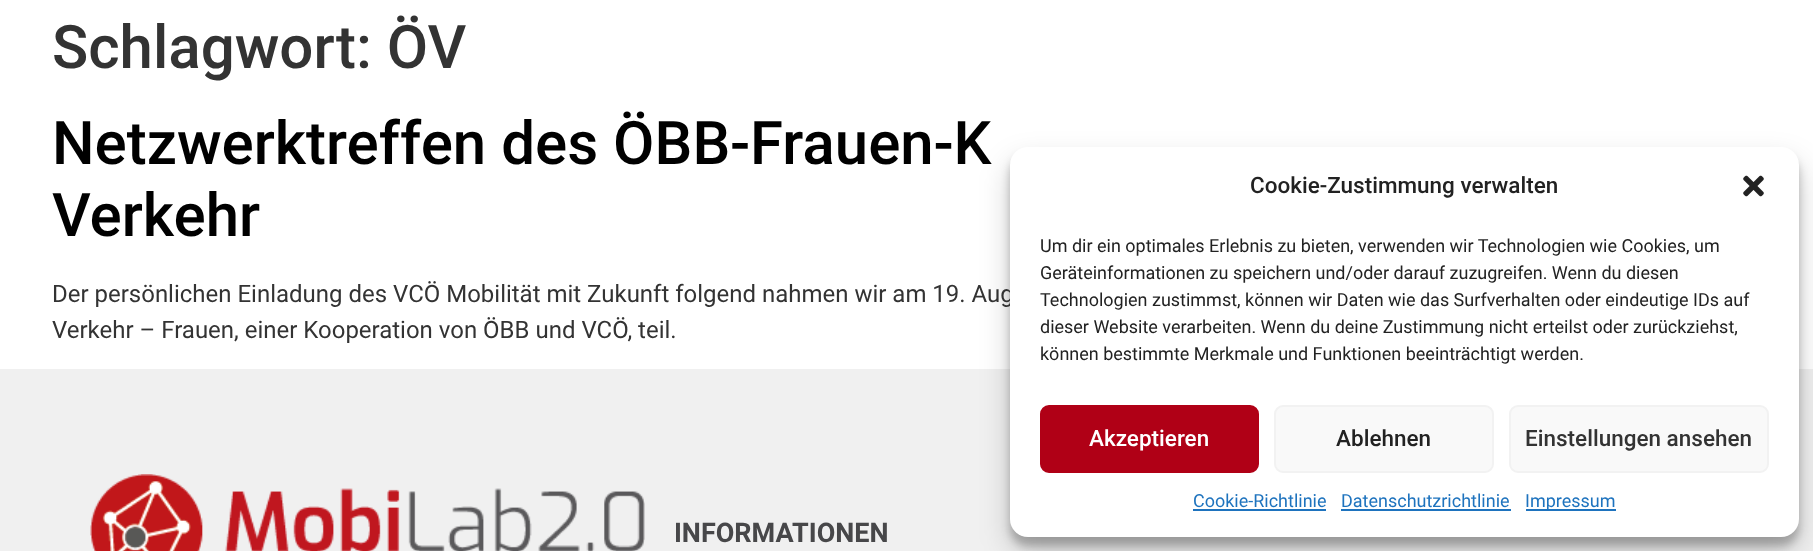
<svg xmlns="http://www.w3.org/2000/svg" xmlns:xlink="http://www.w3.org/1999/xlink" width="1813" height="551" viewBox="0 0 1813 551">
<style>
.cls-1{font:500 60px Roboto;fill:#333333}
.cls-2{font:500 60px Roboto;fill:#000000}
.cls-3{font:24px Roboto;fill:#333333}
.cls-4{font:500 22.5px Roboto;fill:#222222}
.cls-5{font:18px Roboto;fill:#222222}
.cls-6{font:500 22.5px Roboto;fill:#ffffff}
.cls-7{font:500 22.5px Roboto;fill:#333333}
.cls-8{font:18px Roboto;fill:#1e73be}
.cls-9{font:bold 27px Roboto;fill:#474749}
</style>
<rect width="100%" height="100%" fill="#ffffff"/>
<rect fill="#f0f0f0" x="0" y="369" width="1813" height="182"/>
<rect fill="#000000" fill-opacity="0.23" filter="blur(4.5px)" x="1010" y="156" width="789" height="390" rx="18"/>
<rect fill="#000000" fill-opacity="0.19" filter="blur(15px)" x="1010" y="162" width="789" height="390" rx="18"/>
<image xlink:href="image1.png" x="90" y="474" width="555" height="77"/>
<text class="cls-1" x="52" y="68">Schlagwort: ÖV</text>
<text class="cls-2"><tspan x="52" y="164">Netzwerktreffen des ÖBB-Frauen-K</tspan><tspan x="52" y="236">Verkehr</tspan></text>
<text class="cls-3"><tspan x="52" y="302">Der persönlichen Einladung des VCÖ Mobilität mit Zukunft folgend nahmen wir am 19. Aug</tspan><tspan x="52" y="338">Verkehr – Frauen, einer Kooperation von ÖBB und VCÖ, teil.</tspan></text>
<rect fill="#ffffff" x="1010" y="147" width="789" height="390" rx="18"/>
<text class="cls-4" x="1250" y="193">Cookie-Zustimmung verwalten</text>
<image xlink:href="image0.png" x="1743" y="175" width="21" height="22"/>
<text class="cls-5"><tspan x="1040" y="252">Um dir ein optimales Erlebnis zu bieten, verwenden wir Technologien wie Cookies, um</tspan><tspan x="1040" y="279">Geräteinformationen zu speichern und/oder darauf zuzugreifen. Wenn du diesen</tspan><tspan x="1040" y="306">Technologien zustimmst, können wir Daten wie das Surfverhalten oder eindeutige IDs auf</tspan><tspan x="1040" y="333">dieser Website verarbeiten. Wenn du deine Zustimmung nicht erteilst oder zurückziehst,</tspan><tspan x="1040" y="360">können bestimmte Merkmale und Funktionen beeinträchtigt werden.</tspan></text>
<rect fill="#b00016" stroke="#b00016" stroke-width="2" x="1041" y="406" width="217" height="66" rx="8"/>
<text class="cls-6" x="1089" y="446">Akzeptieren</text>
<rect fill="#f9f9f9" stroke="#f2f2f2" stroke-width="2" x="1275" y="406" width="218" height="66" rx="8"/>
<text class="cls-4" x="1336" y="446">Ablehnen</text>
<rect fill="#f9f9f9" stroke="#f2f2f2" stroke-width="2" x="1510" y="406" width="258" height="66" rx="8"/>
<text class="cls-7" x="1525" y="446">Einstellungen ansehen</text>
<text class="cls-8" x="1193" y="507">Cookie-Richtlinie</text>
<rect fill="#1e73be" x="1193" y="509" width="133" height="2"/>
<text class="cls-8" x="1341" y="507">Datenschutzrichtlinie</text>
<rect fill="#1e73be" x="1341" y="509" width="170" height="2"/>
<rect fill="#1e73be" x="1526" y="509" width="90" height="2"/>
<text class="cls-8" x="1525" y="507">Impressum</text>
<text class="cls-9" x="674" y="542">INFORMATIONEN</text>
</svg>
